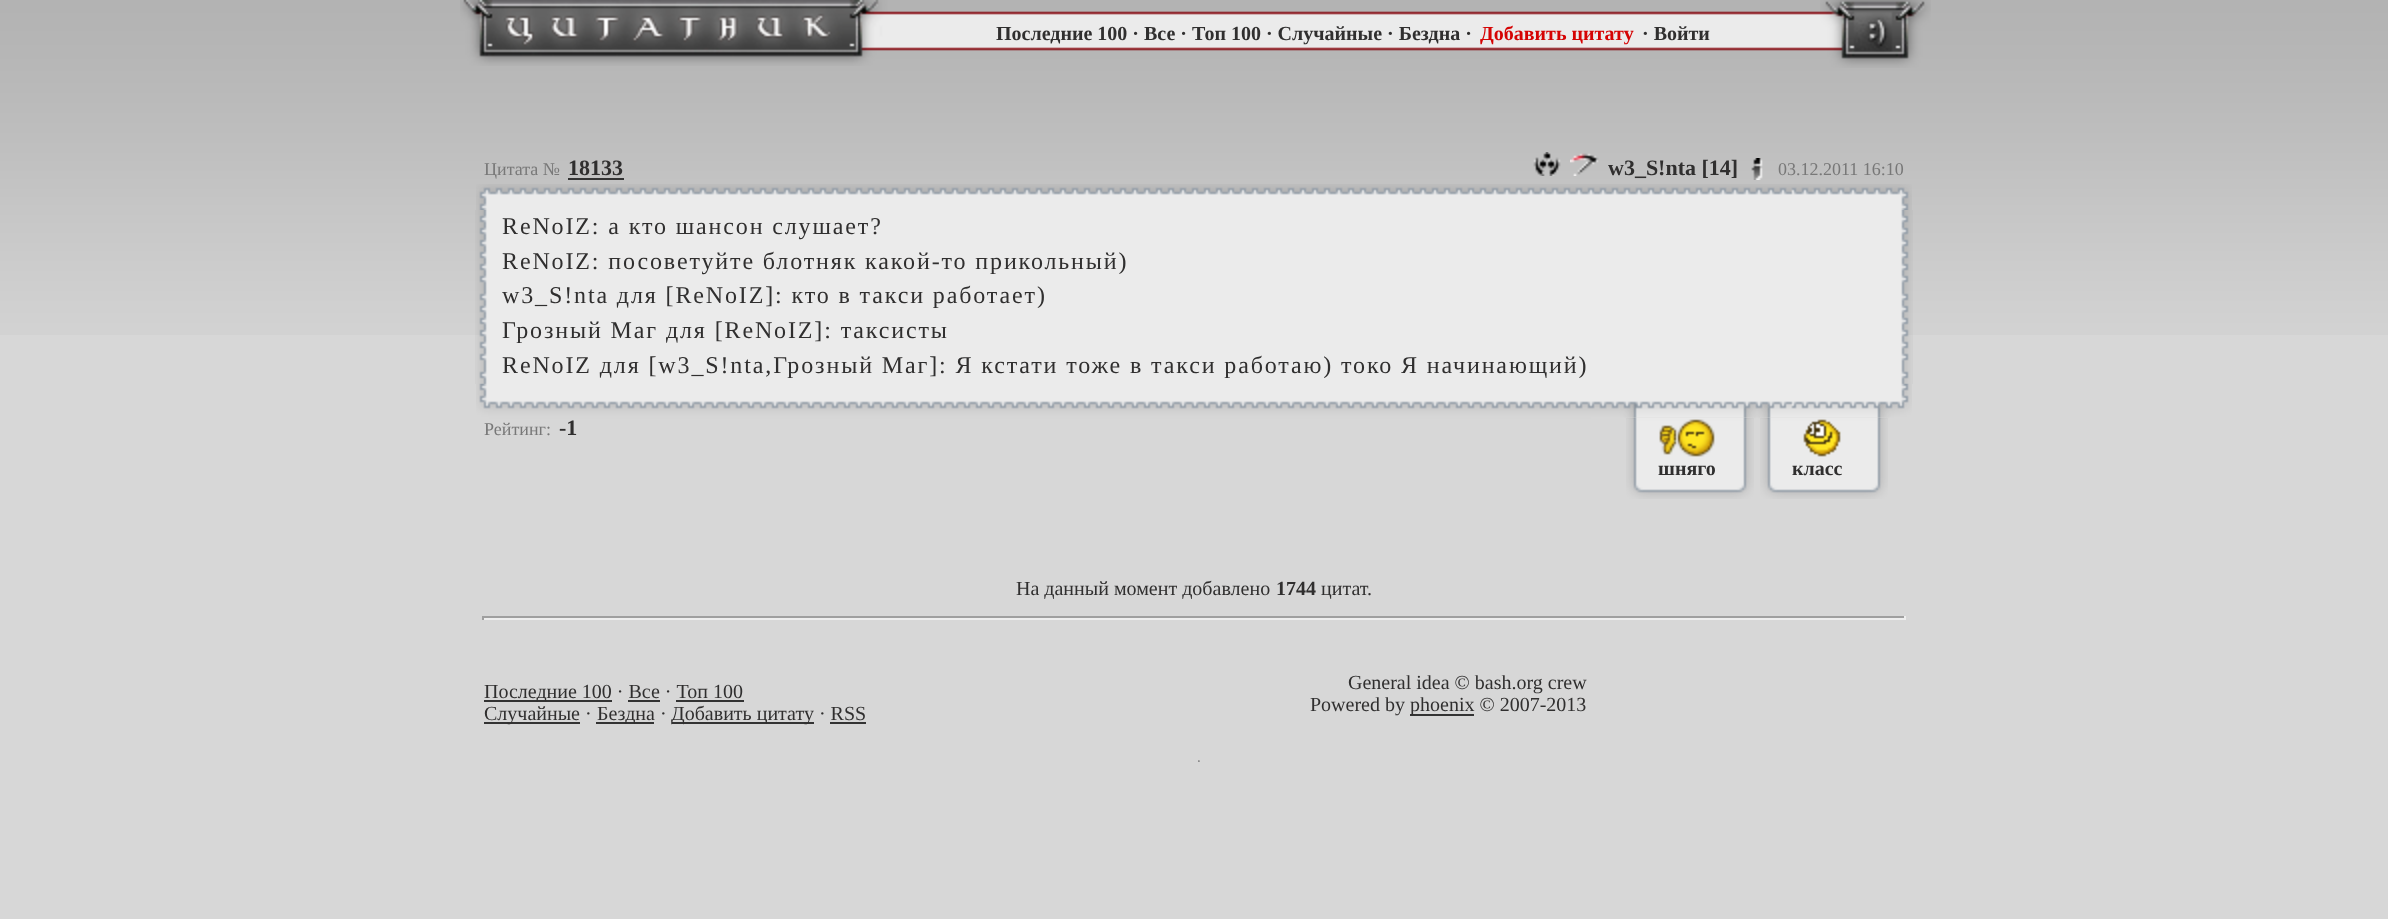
<svg xmlns="http://www.w3.org/2000/svg" xmlns:xlink="http://www.w3.org/1999/xlink" width="2388" height="919" viewBox="0 0 2388 919">
<style>
.cls-1{font:bold 20px Liberation Serif;fill:#302f2f}
.cls-2{font:bold 20px Liberation Serif;fill:#d50303}
.cls-3{font:18px Liberation Serif;fill:#787878}
.cls-4{font:bold 22px Liberation Serif;fill:#302f2f}
.cls-5{font:24px Liberation Serif;letter-spacing:1.87px;fill:#302f2f}
.cls-6{font:20px Liberation Serif;fill:#302f2f}
</style>
<rect width="100%" height="100%" fill="#d7d7d7"/>
<image xlink:href="image0.png" x="0" y="0" width="2388" height="335"/>
<image xlink:href="image1.png" x="460" y="0" width="428" height="66"/>
<image xlink:href="image2.png" x="888" y="11" width="932" height="40"/>
<image xlink:href="image3.png" x="1820" y="0" width="111" height="68"/>
<image xlink:href="image4.png" x="476" y="184" width="1436" height="26"/>
<rect fill="#333333" x="568" y="178" width="56" height="2"/>
<image xlink:href="image5.png" x="1533" y="152" width="28" height="24"/>
<image xlink:href="image6.png" x="1570" y="153" width="29" height="23"/>
<image xlink:href="image7.png" x="1751" y="158" width="12" height="22"/>
<image xlink:href="image8.png" x="475" y="210" width="27" height="174"/>
<rect fill="#ebebeb" x="502" y="210" width="1384" height="174"/>
<image xlink:href="image9.png" x="1886" y="210" width="27" height="174"/>
<image xlink:href="image10.png" x="476" y="384" width="1436" height="35"/>
<image xlink:href="image11.png" x="1626" y="418" width="128" height="81"/>
<image xlink:href="image12.png" x="1659" y="419" width="56" height="38"/>
<image xlink:href="image11.png" x="1760" y="418" width="128" height="81"/>
<image xlink:href="image13.png" x="1803" y="419" width="38" height="38"/>
<rect fill="#9f9f9f" x="482" y="616" width="1424" height="2"/>
<rect fill="#eeeeee" x="1904" y="616" width="2" height="4"/>
<rect fill="#eeeeee" x="482" y="618" width="1424" height="2"/>
<rect fill="#9f9f9f" x="482" y="616" width="2" height="4"/>
<rect fill="#333333" x="484" y="700" width="128" height="2"/>
<rect fill="#333333" x="484" y="722" width="96" height="2"/>
<rect fill="#333333" x="596" y="722" width="58" height="2"/>
<rect fill="#333333" x="672" y="722" width="142" height="2"/>
<rect fill="#333333" x="1410" y="714" width="64" height="2"/>
<image xlink:href="image14.png" x="1198" y="760" width="2" height="2"/>
<text class="cls-1" x="996" y="40">Последние 100 · Все · Топ 100 · Случайные · Бездна ·</text>
<text class="cls-2" x="1480" y="40">Добавить цитату</text>
<text class="cls-1" x="1642" y="40">· Войти</text>
<text class="cls-3" x="484" y="175">Цитата №</text>
<text class="cls-4" x="568" y="175">18133</text>
<text class="cls-4" x="1608" y="175">w3_S!nta [14]</text>
<text class="cls-3" x="1778" y="175">03.12.2011 16:10</text>
<text class="cls-5"><tspan x="502" y="234">ReNoIZ: а кто шансон слушает?</tspan><tspan x="502" y="269">ReNoIZ: посоветуйте блотняк какой-то прикольный)</tspan><tspan x="502" y="303">w3_S!nta для [ReNoIZ]: кто в такси работает)</tspan><tspan x="502" y="338">Грозный Маг для [ReNoIZ]: таксисты</tspan><tspan x="502" y="373">ReNoIZ для [w3_S!nta,Грозный Маг]: Я кстати тоже в такси работаю) токо Я начинающий)</tspan></text>
<text class="cls-3" x="484" y="435">Рейтинг:</text>
<text class="cls-4" x="559" y="435">-1</text>
<text class="cls-1" x="1658" y="475">шняго</text>
<text class="cls-1" x="1792" y="475">класс</text>
<text class="cls-6" x="1016" y="595">На данный момент добавлено</text>
<text class="cls-1" x="1276" y="595">1744</text>
<text class="cls-6" x="1321" y="595">цитат.</text>
<text class="cls-6" x="484" y="698">Последние 100 · Все · Топ 100</text>
<rect fill="#333333" x="628" y="700" width="32" height="2"/>
<rect fill="#333333" x="676" y="700" width="68" height="2"/>
<text class="cls-6" x="484" y="720">Случайные ·</text>
<text class="cls-6" x="597" y="720">Бездна ·</text>
<text class="cls-6" x="671" y="720">Добавить цитату · RSS</text>
<rect fill="#333333" x="830" y="722" width="36" height="2"/>
<text class="cls-6" x="1348" y="689">General idea © bash.org crew</text>
<text class="cls-6" x="1310" y="711">Powered by</text>
<text class="cls-6" x="1410" y="711">phoenix © 2007-2013</text>
</svg>
